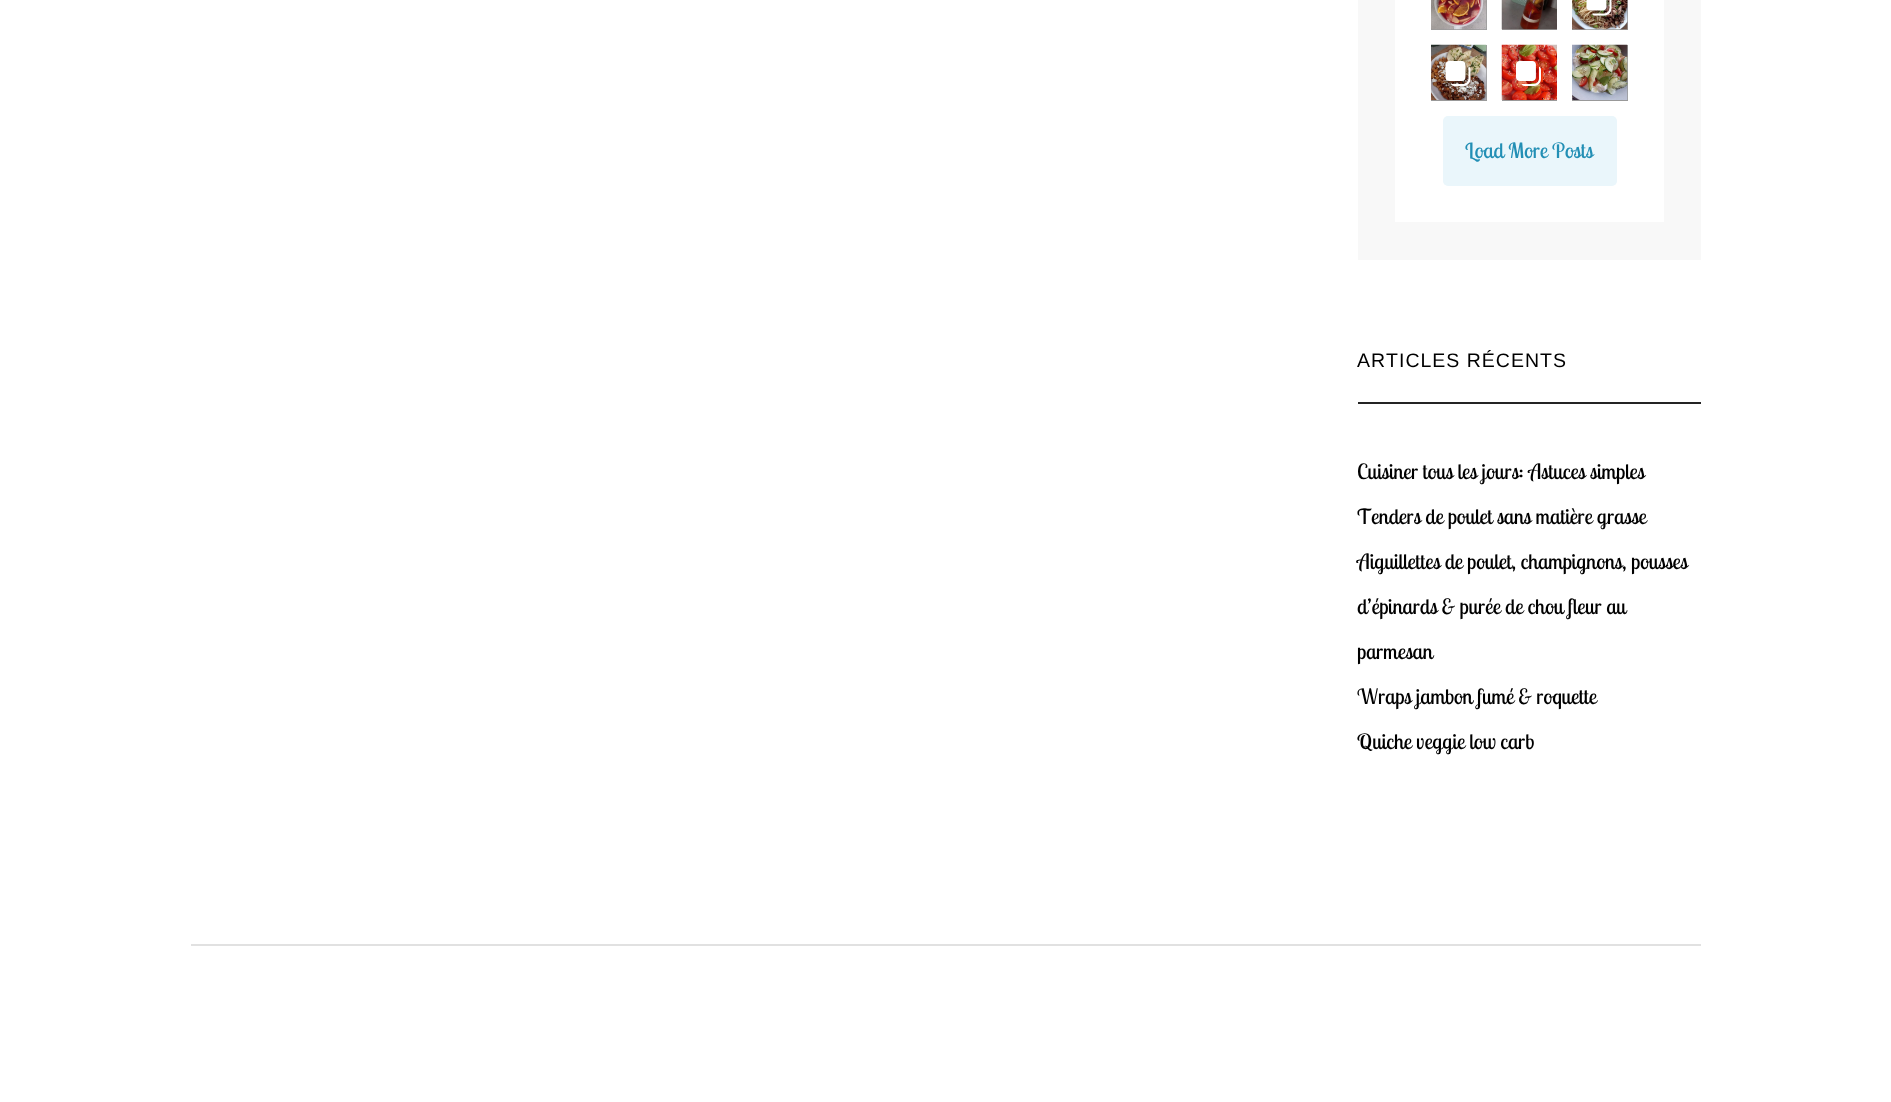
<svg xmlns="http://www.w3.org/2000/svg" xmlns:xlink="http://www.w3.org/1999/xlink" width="1891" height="1102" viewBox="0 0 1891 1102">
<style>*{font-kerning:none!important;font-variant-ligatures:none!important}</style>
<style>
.cls-1{font:21px Lobster Two;fill:#238fb5}
.cls-2{font:19.5px Liberation Sans;letter-spacing:1px;fill:#000000}
.cls-3{font:21px Lobster Two;fill:#000000}
</style>
<rect width="100%" height="100%" fill="#ffffff"/>
<rect fill="#f8f8f8" x="1358" y="0" width="343" height="260"/>
<rect fill="#ffffff" x="1395" y="0" width="269" height="222"/>
<rect fill="#999999" x="1431" y="0" width="56" height="30"/>
<image xlink:href="image0.png" x="1431" y="0" width="56" height="30"/>
<rect fill="#999999" x="1502" y="29" width="55" height="1"/>
<image xlink:href="image1.png" x="1501" y="0" width="56" height="30"/>
<rect fill="#999999" x="1572" y="0" width="56" height="30"/>
<image xlink:href="image2.png" x="1572" y="0" width="56" height="30"/>
<image xlink:href="image3.png" x="1586" y="0" width="26" height="16"/>
<rect fill="#999999" x="1431" y="45" width="56" height="56"/>
<image xlink:href="image4.png" x="1431" y="44" width="56" height="56"/>
<image xlink:href="image5.png" x="1445" y="61" width="26" height="25"/>
<rect fill="#999999" x="1502" y="100" width="55" height="1"/>
<image xlink:href="image6.png" x="1501" y="44" width="56" height="56"/>
<image xlink:href="image7.png" x="1516" y="61" width="25" height="25"/>
<rect fill="#999999" x="1572" y="45" width="56" height="56"/>
<image xlink:href="image8.png" x="1572" y="44" width="56" height="56"/>
<rect fill="#eaf6fb" x="1443" y="116" width="174" height="70" rx="5"/>
<rect fill="#242424" x="1358" y="402" width="343" height="2"/>
<rect fill="#e1e1e1" x="191" y="944" width="1510" height="2"/>
<text class="cls-1" x="1465" y="158">Load More Posts</text>
<text class="cls-2" x="1357" y="367">ARTICLES RÉCENTS</text>
<text class="cls-3" x="1357" y="479">Cuisiner tous les jours: Astuces simples</text>
<text class="cls-3" x="1357" y="524">Tenders de poulet sans matière grasse</text>
<text class="cls-3" x="1357" y="569">Aiguillettes de poulet, champignons, pousses</text>
<text class="cls-3" x="1357" y="614">d’épinards &amp; purée de chou fleur au</text>
<text class="cls-3" x="1357" y="659">parmesan</text>
<text class="cls-3" x="1357" y="704">Wraps jambon fumé &amp; roquette</text>
<text class="cls-3" x="1357" y="749">Quiche veggie low carb</text>
</svg>
